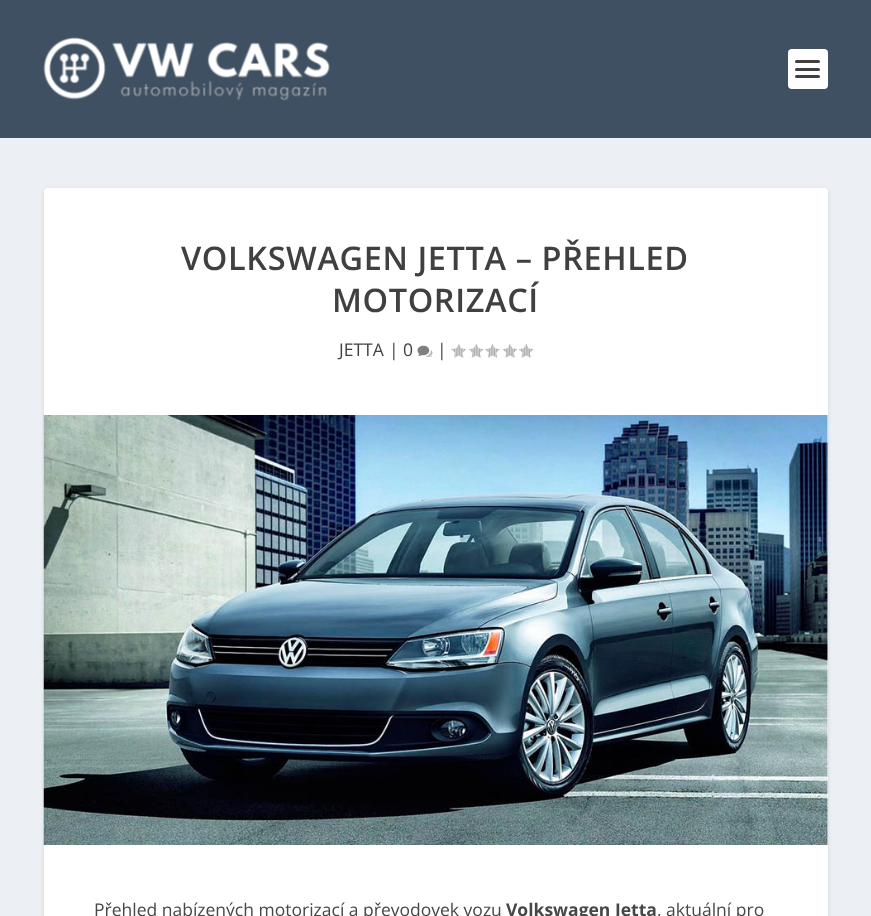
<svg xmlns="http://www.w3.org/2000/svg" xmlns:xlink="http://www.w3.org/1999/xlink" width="871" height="916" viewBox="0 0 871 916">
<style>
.cls-1{font:600 32.5px Open Sans;letter-spacing:0.6px;fill:#404040}
.cls-2{font:17.5px Open Sans;fill:#404040}
.cls-3{font:17.5px Open Sans;fill:#474747}
.cls-4{font:bold 17.5px Open Sans;fill:#474747}
</style>
<rect width="100%" height="100%" fill="#ecf0f5"/>
<rect fill="#3e5062" x="0" y="0" width="871" height="138"/>
<image xlink:href="image0.png" x="43" y="37" width="287" height="64"/>
<rect fill="#ffffff" x="788" y="49" width="40" height="40" rx="4"/>
<rect fill="#404040" x="795" y="60" width="25" height="3" rx="1.5"/>
<rect fill="#404040" x="795" y="68" width="25" height="3" rx="1.5"/>
<rect fill="#404040" x="795" y="75" width="25" height="3" rx="1.5"/>
<rect fill="#000000" fill-opacity="0.1" filter="blur(2px)" x="44" y="189" width="784" height="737" rx="4"/>
<rect fill="#ffffff" x="44" y="188" width="784" height="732" rx="4"/>
<image xlink:href="image1.png" x="417" y="345" width="16" height="12"/>
<image xlink:href="image2.png" x="451" y="344" width="15" height="14"/>
<image xlink:href="image3.png" x="469" y="344" width="15" height="14"/>
<image xlink:href="image4.png" x="485" y="344" width="15" height="14"/>
<image xlink:href="image5.png" x="502" y="344" width="16" height="14"/>
<image xlink:href="image3.png" x="519" y="344" width="15" height="14"/>
<image xlink:href="image6.png" x="43" y="415" width="785" height="430"/>
<text class="cls-1" x="181" y="270">VOLKSWAGEN JETTA – PŘEHLED</text>
<text class="cls-1" x="332" y="312">MOTORIZACÍ</text>
<text class="cls-2" x="339" y="356">JETTA</text>
<text class="cls-3" x="389" y="356">|</text>
<text class="cls-2" x="403" y="356">0</text>
<text class="cls-3" x="437" y="356">|</text>
<text class="cls-3" x="94" y="916">Přehled nabízených motorizací a převodovek vozu</text>
<text class="cls-4" x="506" y="916">Volkswagen Jetta</text>
<text class="cls-3" x="657" y="916">, aktuální pro</text>
</svg>
